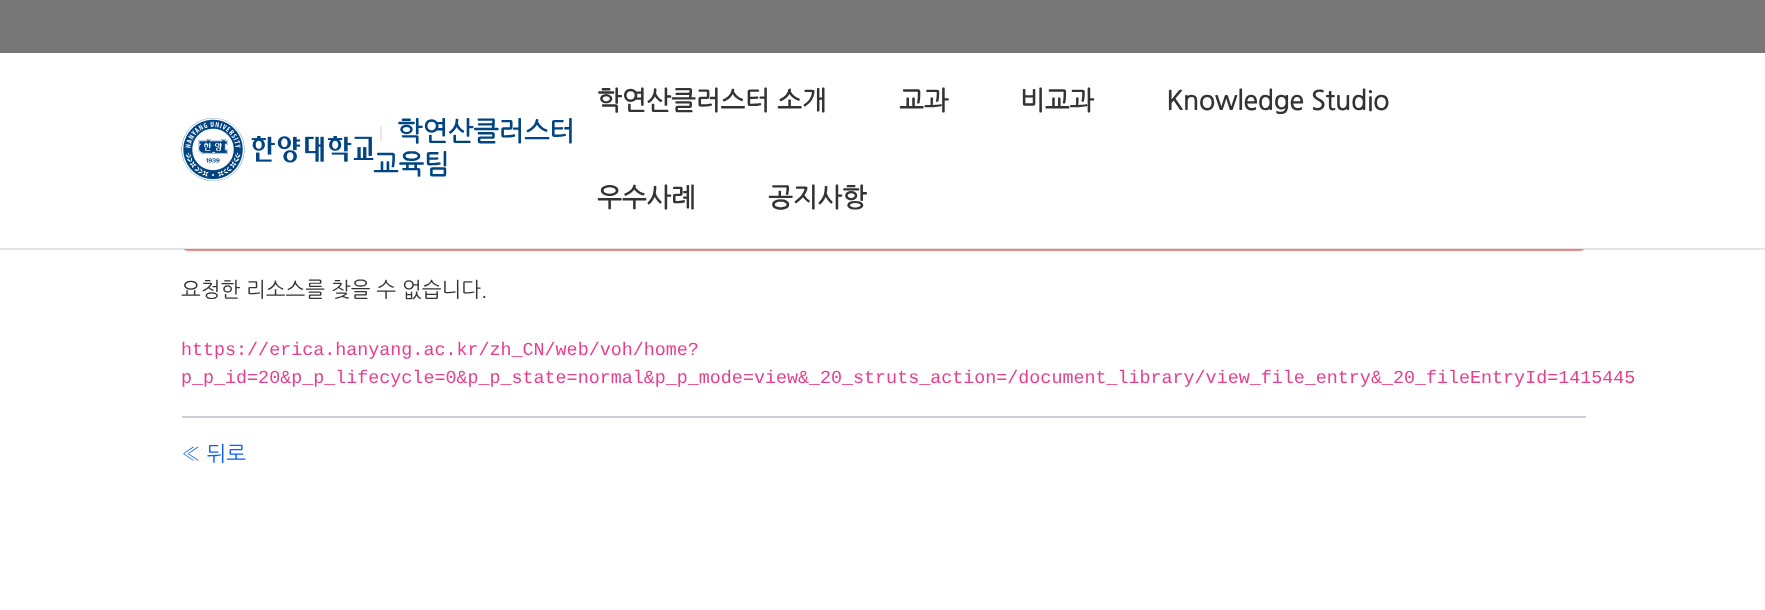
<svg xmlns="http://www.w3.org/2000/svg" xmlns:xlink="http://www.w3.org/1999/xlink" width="1765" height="610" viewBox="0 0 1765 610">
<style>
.cls-1{font:bold 27px NanumGothic;fill:#004483}
.cls-2{font:bold 26.25px NanumGothic;fill:#333333}
.cls-3{font:21px NanumGothic;fill:#333333}
.cls-4{font:18.38px Liberation Mono;fill:#e83e8c}
.cls-5{font:21px NanumGothic;fill:#0b5fff}
</style>
<rect width="100%" height="100%" fill="#ffffff"/>
<rect fill="#777777" x="0" y="0" width="1765" height="53"/>
<rect fill="none" stroke="#f48989" stroke-width="2" x="183" y="174" width="1402" height="76" rx="5"/>
<rect fill="#ffffff" x="182" y="173" width="1404" height="76"/>
<rect fill="#7c7c7c" fill-opacity="0.2" x="0" y="248" width="1765" height="2"/>
<rect fill="#e7e7ed" x="380" y="126" width="2" height="15"/>
<rect fill="#cdced9" x="182" y="416" width="1404" height="2"/>
<text class="cls-1" x="397" y="141">학연산클러스터</text>
<text class="cls-1" x="373" y="174">교육팀</text>
<image xlink:href="image0.png" x="181" y="118" width="193" height="63"/>
<text class="cls-2" x="597" y="110">학연산클러스터 소개</text>
<text class="cls-2" x="899" y="110">교과</text>
<text class="cls-2" x="1020" y="110">비교과</text>
<text class="cls-2" x="1166" y="110">Knowledge Studio</text>
<text class="cls-2" x="597" y="207">우수사례</text>
<text class="cls-2" x="768" y="207">공지사항</text>
<text class="cls-3" x="181" y="297">요청한 리소스를 찾을 수 없습니다.</text>
<text class="cls-4"><tspan x="181" y="355">https://erica.hanyang.ac.kr/zh_CN/web/voh/home?</tspan><tspan x="181" y="383">p_p_id=20&amp;p_p_lifecycle=0&amp;p_p_state=normal&amp;p_p_mode=view&amp;_20_struts_action=/document_library/view_file_entry&amp;_20_fileEntryId=1415445</tspan></text>
<text class="cls-5" x="181" y="461">« 뒤로</text>
</svg>
